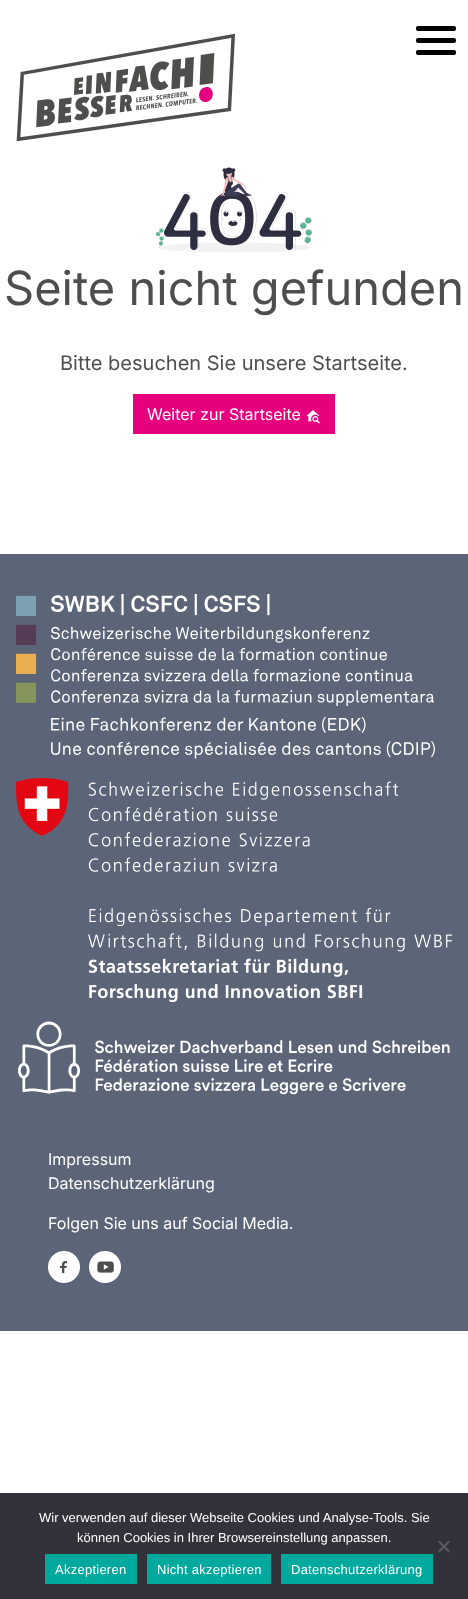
<svg xmlns="http://www.w3.org/2000/svg" xmlns:xlink="http://www.w3.org/1999/xlink" width="468" height="1599" viewBox="0 0 468 1599">
<style>
.cls-1{font:47px Inter;fill:#4e4e4c}
.cls-2{font:20px Inter;fill:#4e4e4c}
.cls-3{font:16px Inter;fill:#ffffff}
.cls-4{font:13px Liberation Sans;fill:#ffffff}
.cls-5{font:13px Liberation Sans;letter-spacing:0.25px;fill:#ffffff}
</style>
<rect width="100%" height="100%" fill="#ffffff"/>
<image xlink:href="image0.png" x="16" y="33" width="219" height="109"/>
<rect fill="#000000" x="416" y="26" width="40" height="5" rx="2"/>
<rect fill="#000000" x="416" y="38" width="40" height="5" rx="2"/>
<rect fill="#000000" x="416" y="50" width="40" height="5" rx="2"/>
<image xlink:href="image1.png" x="156" y="167" width="156" height="86"/>
<rect fill="#e6007e" x="133" y="394" width="202" height="40"/>
<image xlink:href="image2.png" x="306" y="410" width="14" height="14"/>
<rect fill="#5c6578" x="0" y="554" width="468" height="777"/>
<image xlink:href="image3.png" x="16" y="594" width="419" height="165"/>
<image xlink:href="image4.png" x="16" y="778" width="436" height="224"/>
<image xlink:href="image5.png" x="18" y="1021" width="432" height="74"/>
<image xlink:href="image6.png" x="48" y="1251" width="32" height="32"/>
<image xlink:href="image7.png" x="89" y="1251" width="32" height="32"/>
<rect fill="#32323a" x="0" y="1493" width="468" height="106"/>
<path fill="#59595d" d="M448.5 1540.5L450 1542L439.5 1552.5L438 1551Z"/>
<path fill="#59595d" d="M438 1542L439.5 1540.5L450 1551L448.5 1552.5Z"/>
<rect fill="#00a99d" x="45" y="1554" width="92" height="30"/>
<rect fill="#00a99d" x="147" y="1554" width="124" height="30"/>
<rect fill="#00a99d" x="281" y="1554" width="152" height="30"/>
<text class="cls-1" x="4" y="305">Seite nicht gefunden</text>
<text class="cls-2" x="60" y="370">Bitte besuchen Sie unsere Startseite.</text>
<text class="cls-3" x="147" y="420">Weiter zur Startseite</text>
<text class="cls-3"><tspan x="48" y="1165">Impressum</tspan><tspan x="48" y="1189">Datenschutzerklärung</tspan></text>
<text class="cls-3" x="48" y="1229">Folgen Sie uns auf Social Media.</text>
<text class="cls-4" x="39" y="1522">Wir verwenden auf dieser Webseite Cookies und Analyse-Tools. Sie</text>
<text class="cls-4" x="77" y="1542">können Cookies in Ihrer Browsereinstellung anpassen.</text>
<text class="cls-5" x="55" y="1574">Akzeptieren</text>
<text class="cls-5" x="157" y="1574">Nicht akzeptieren</text>
<text class="cls-5" x="291" y="1574">Datenschutzerklärung</text>
</svg>
